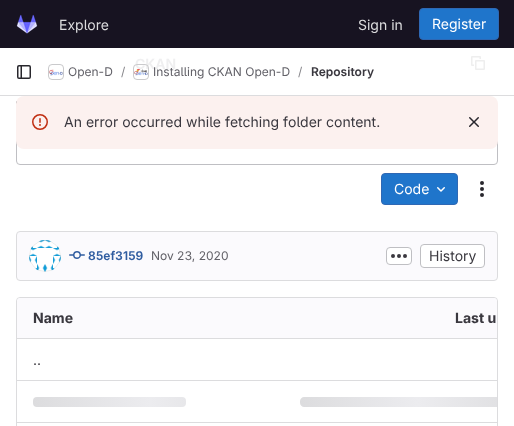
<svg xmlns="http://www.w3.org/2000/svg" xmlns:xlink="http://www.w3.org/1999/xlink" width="514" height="426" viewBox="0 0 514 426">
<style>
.cls-1{font:14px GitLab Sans;fill:#dcdcde}
.cls-2{font:14px GitLab Sans;fill:#ffffff}
.cls-3{font:600 14px GitLab Sans;fill:#efeff0}
.cls-4{font:600 12px GitLab Sans;fill:#2f5ca0}
.cls-5{font:12px GitLab Sans;fill:#626168}
.cls-6{font:14px GitLab Sans;fill:#3a383f}
.cls-7{font:bold 14px GitLab Sans;fill:#3a383f}
.cls-8{font:12px GitLab Sans;fill:#89888d}
.cls-9{font:600 12px GitLab Sans;fill:#3a383f}
</style>
<defs>
<linearGradient id="g1" gradientUnits="userSpaceOnUse" x1="33" y1="397" x2="268" y2="397"><stop offset="0" stop-color="#dcdcde"/><stop offset="0.5" stop-color="#ececef"/><stop offset="1" stop-color="#dcdcde"/></linearGradient>
<linearGradient id="g2" gradientUnits="userSpaceOnUse" x1="300" y1="397" x2="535" y2="397"><stop offset="0" stop-color="#dcdcde"/><stop offset="0.5" stop-color="#ececef"/><stop offset="1" stop-color="#dcdcde"/></linearGradient>
</defs>
<rect width="100%" height="100%" fill="#ffffff"/>
<rect fill="#171321" x="0" y="0" width="514" height="48"/>
<image xlink:href="image0.png" x="16" y="14" width="22" height="20"/>
<rect fill="#1f75cb" stroke="#2f68b4" x="419.5" y="8.5" width="79" height="31" rx="3.5"/>
<image xlink:href="image1.png" x="471" y="56" width="14" height="14"/>
<image xlink:href="image2.png" x="16" y="101" width="1" height="3"/>
<rect fill="none" stroke="#bfbfc3" x="16.5" y="133.5" width="481" height="31" rx="3.5"/>
<rect fill="#1f75cb" stroke="#2f68b4" x="381.5" y="173.5" width="76" height="31" rx="3.5"/>
<image xlink:href="image3.png" x="437" y="187" width="8" height="5"/>
<image xlink:href="image4.png" x="480" y="181" width="4" height="16"/>
<rect fill="#fbfafd" stroke="#dcdcde" x="16.5" y="231.5" width="481" height="49" rx="3.5"/>
<image xlink:href="image5.png" x="29" y="240" width="32" height="32"/>
<circle fill="none" stroke="#050506" stroke-opacity="0.08" cx="45" cy="256" r="15.5"/>
<image xlink:href="image6.png" x="69" y="251" width="16" height="8"/>
<rect fill="#ffffff" stroke="#bfbfc3" x="386.5" y="247.5" width="25" height="17" rx="3.5"/>
<image xlink:href="image7.png" x="391" y="254" width="16" height="4"/>
<rect fill="#ffffff" stroke="#bfbfc3" x="420.5" y="244.5" width="64" height="23" rx="3.5"/>
<rect fill="none" stroke="#dcdcde" x="16.5" y="297.5" width="481" height="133" rx="3.5"/>
<path fill="#fbfafd" d="M20 298H284V338H17V301C17 299.5 18.5 298 20 298Z"/>
<path fill="#fbfafd" d="M284 298H494C495.5 298 497 299.5 497 301V338H284Z"/>
<rect fill="#dcdcde" x="17" y="380" width="480" height="1"/>
<rect fill="#dcdcde" x="17" y="338" width="480" height="1"/>
<rect fill="#dcdcde" x="17" y="422" width="480" height="1"/>
<rect fill="url(#g1)" x="33" y="397" width="153" height="10" rx="4"/>
<path fill="url(#g2)" d="M304 397H497V407H304C302 407 300 405 300 403V401C300 399 302 397 304 397Z"/>
<rect fill="#fcf1ef" x="16" y="96" width="482" height="53" rx="8"/>
<image xlink:href="image8.png" x="32" y="114" width="16" height="16"/>
<image xlink:href="image9.png" x="469" y="117" width="10" height="10"/>
<rect fill="#dcdcde" x="0" y="95" width="514" height="1"/>
<image xlink:href="image10.png" x="17" y="65" width="14" height="14"/>
<rect fill="none" stroke="#dcdcde" x="48.5" y="64.5" width="15" height="15" rx="3.5"/>
<image xlink:href="image11.png" x="49" y="69" width="14" height="7"/>
<rect fill="none" stroke="#050506" stroke-opacity="0.08" x="48.5" y="64.5" width="15" height="15" rx="3.5"/>
<text class="cls-1" x="59" y="30">Explore</text>
<text class="cls-1" x="358" y="30">Sign in</text>
<text class="cls-2" x="432" y="29">Register</text>
<text class="cls-3" x="135" y="69">CKAN</text>
<text class="cls-2" x="394" y="194">Code</text>
<text class="cls-4" x="88" y="260">85ef3159</text>
<text class="cls-5" x="151" y="260">Nov 23, 2020</text>
<text class="cls-6" x="429" y="261">History</text>
<text class="cls-7" x="33" y="323">Name</text>
<text class="cls-7" x="455" y="323">Last u</text>
<text class="cls-6" x="33" y="365">..</text>
<text class="cls-6" x="64" y="127">An error occurred while fetching folder content.</text>
<text class="cls-5" x="68" y="76">Open-D</text>
<text class="cls-8" x="121" y="76">/</text>
<rect fill="none" stroke="#dcdcde" x="133.5" y="64.5" width="15" height="15" rx="3.5"/>
<image xlink:href="image12.png" x="134" y="69" width="14" height="7"/>
<rect fill="none" stroke="#050506" stroke-opacity="0.08" x="133.5" y="64.5" width="15" height="15" rx="3.5"/>
<text class="cls-5" x="153" y="76">Installing CKAN Open-D</text>
<text class="cls-8" x="298" y="76">/</text>
<text class="cls-9" x="311" y="76">Repository</text>
</svg>
